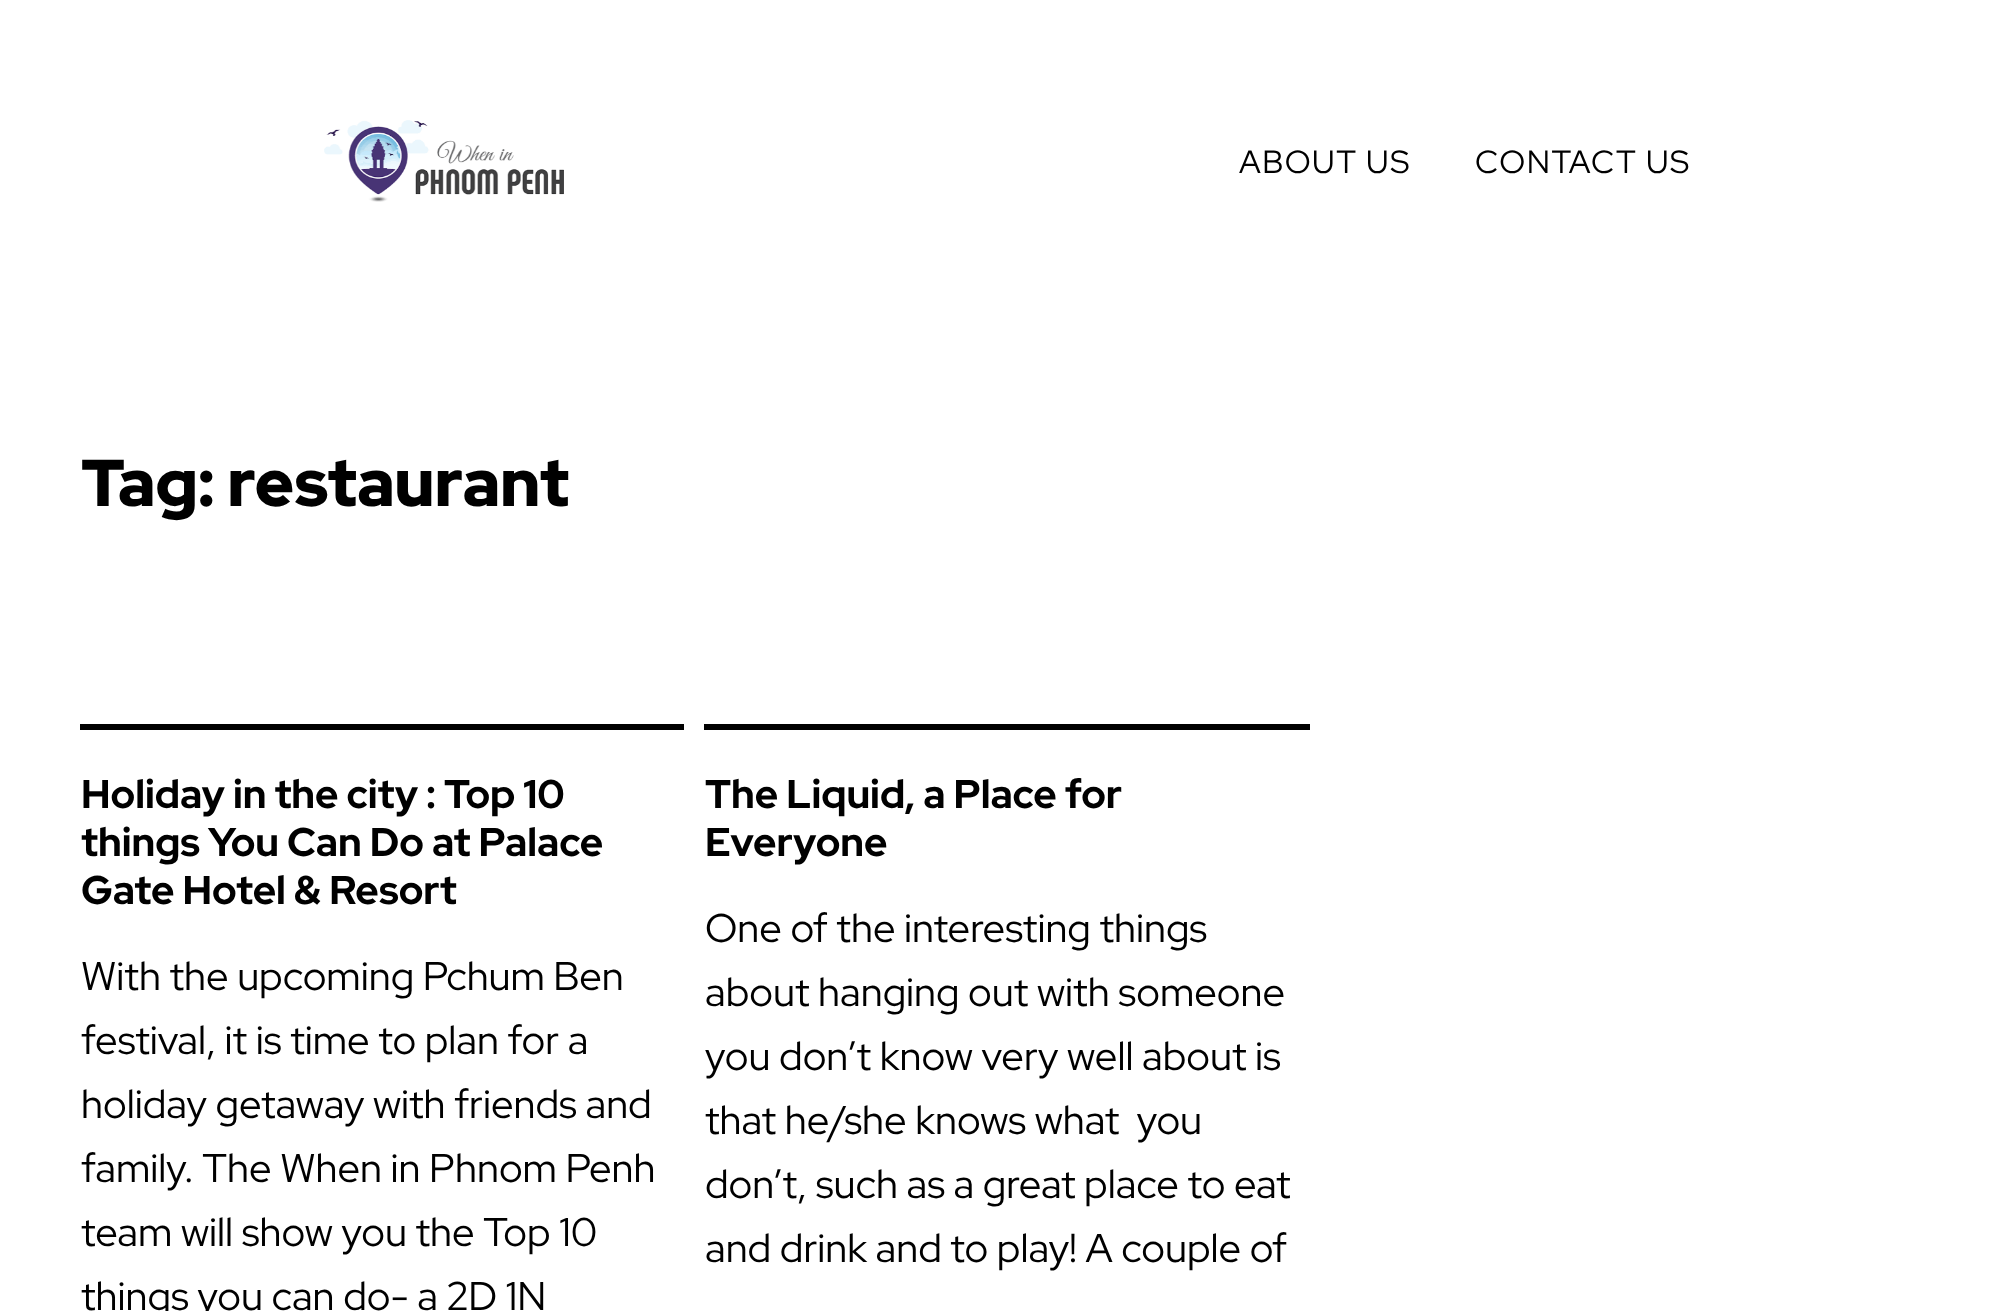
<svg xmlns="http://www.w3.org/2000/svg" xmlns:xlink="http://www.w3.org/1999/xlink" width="2014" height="1311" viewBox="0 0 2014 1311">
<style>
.cls-1{font:32px Red Hat Display;letter-spacing:1.6px;fill:#000000}
.cls-2{font:900 66px Red Hat Display;fill:#000000}
.cls-3{font:bold 40px Red Hat Display;fill:#000000}
.cls-4{font:40px Red Hat Display;fill:#000000}
</style>
<rect width="100%" height="100%" fill="#ffffff"/>
<image xlink:href="image0.png" x="324" y="120" width="240" height="82"/>
<rect fill="#000000" x="80" y="724" width="604" height="6"/>
<rect fill="#000000" x="704" y="724" width="606" height="6"/>
<text class="cls-1" x="1239" y="173">ABOUT US</text>
<text class="cls-1" x="1475" y="173">CONTACT US</text>
<text class="cls-2" x="81" y="506">Tag: restaurant</text>
<text class="cls-3"><tspan x="81" y="808">Holiday in the city : Top 10</tspan><tspan x="81" y="856">things You Can Do at Palace</tspan><tspan x="81" y="904">Gate Hotel &amp; Resort</tspan></text>
<text class="cls-4"><tspan x="81" y="990">With the upcoming Pchum Ben</tspan><tspan x="81" y="1054">festival, it is time to plan for a</tspan><tspan x="81" y="1118">holiday getaway with friends and</tspan><tspan x="81" y="1182">family. The When in Phnom Penh</tspan><tspan x="81" y="1246">team will show you the Top 10</tspan><tspan x="81" y="1310">things you can do- a 2D 1N</tspan></text>
<text class="cls-3"><tspan x="705" y="808">The Liquid, a Place for</tspan><tspan x="705" y="856">Everyone</tspan></text>
<text class="cls-4" xml:space="preserve"><tspan x="705" y="942">One of the interesting things</tspan><tspan x="705" y="1006">about hanging out with someone</tspan><tspan x="705" y="1070">you don’t know very well about is</tspan><tspan x="705" y="1134">that he/she knows what  you</tspan><tspan x="705" y="1198">don’t, such as a great place to eat</tspan><tspan x="705" y="1262">and drink and to play! A couple of</tspan></text>
</svg>
